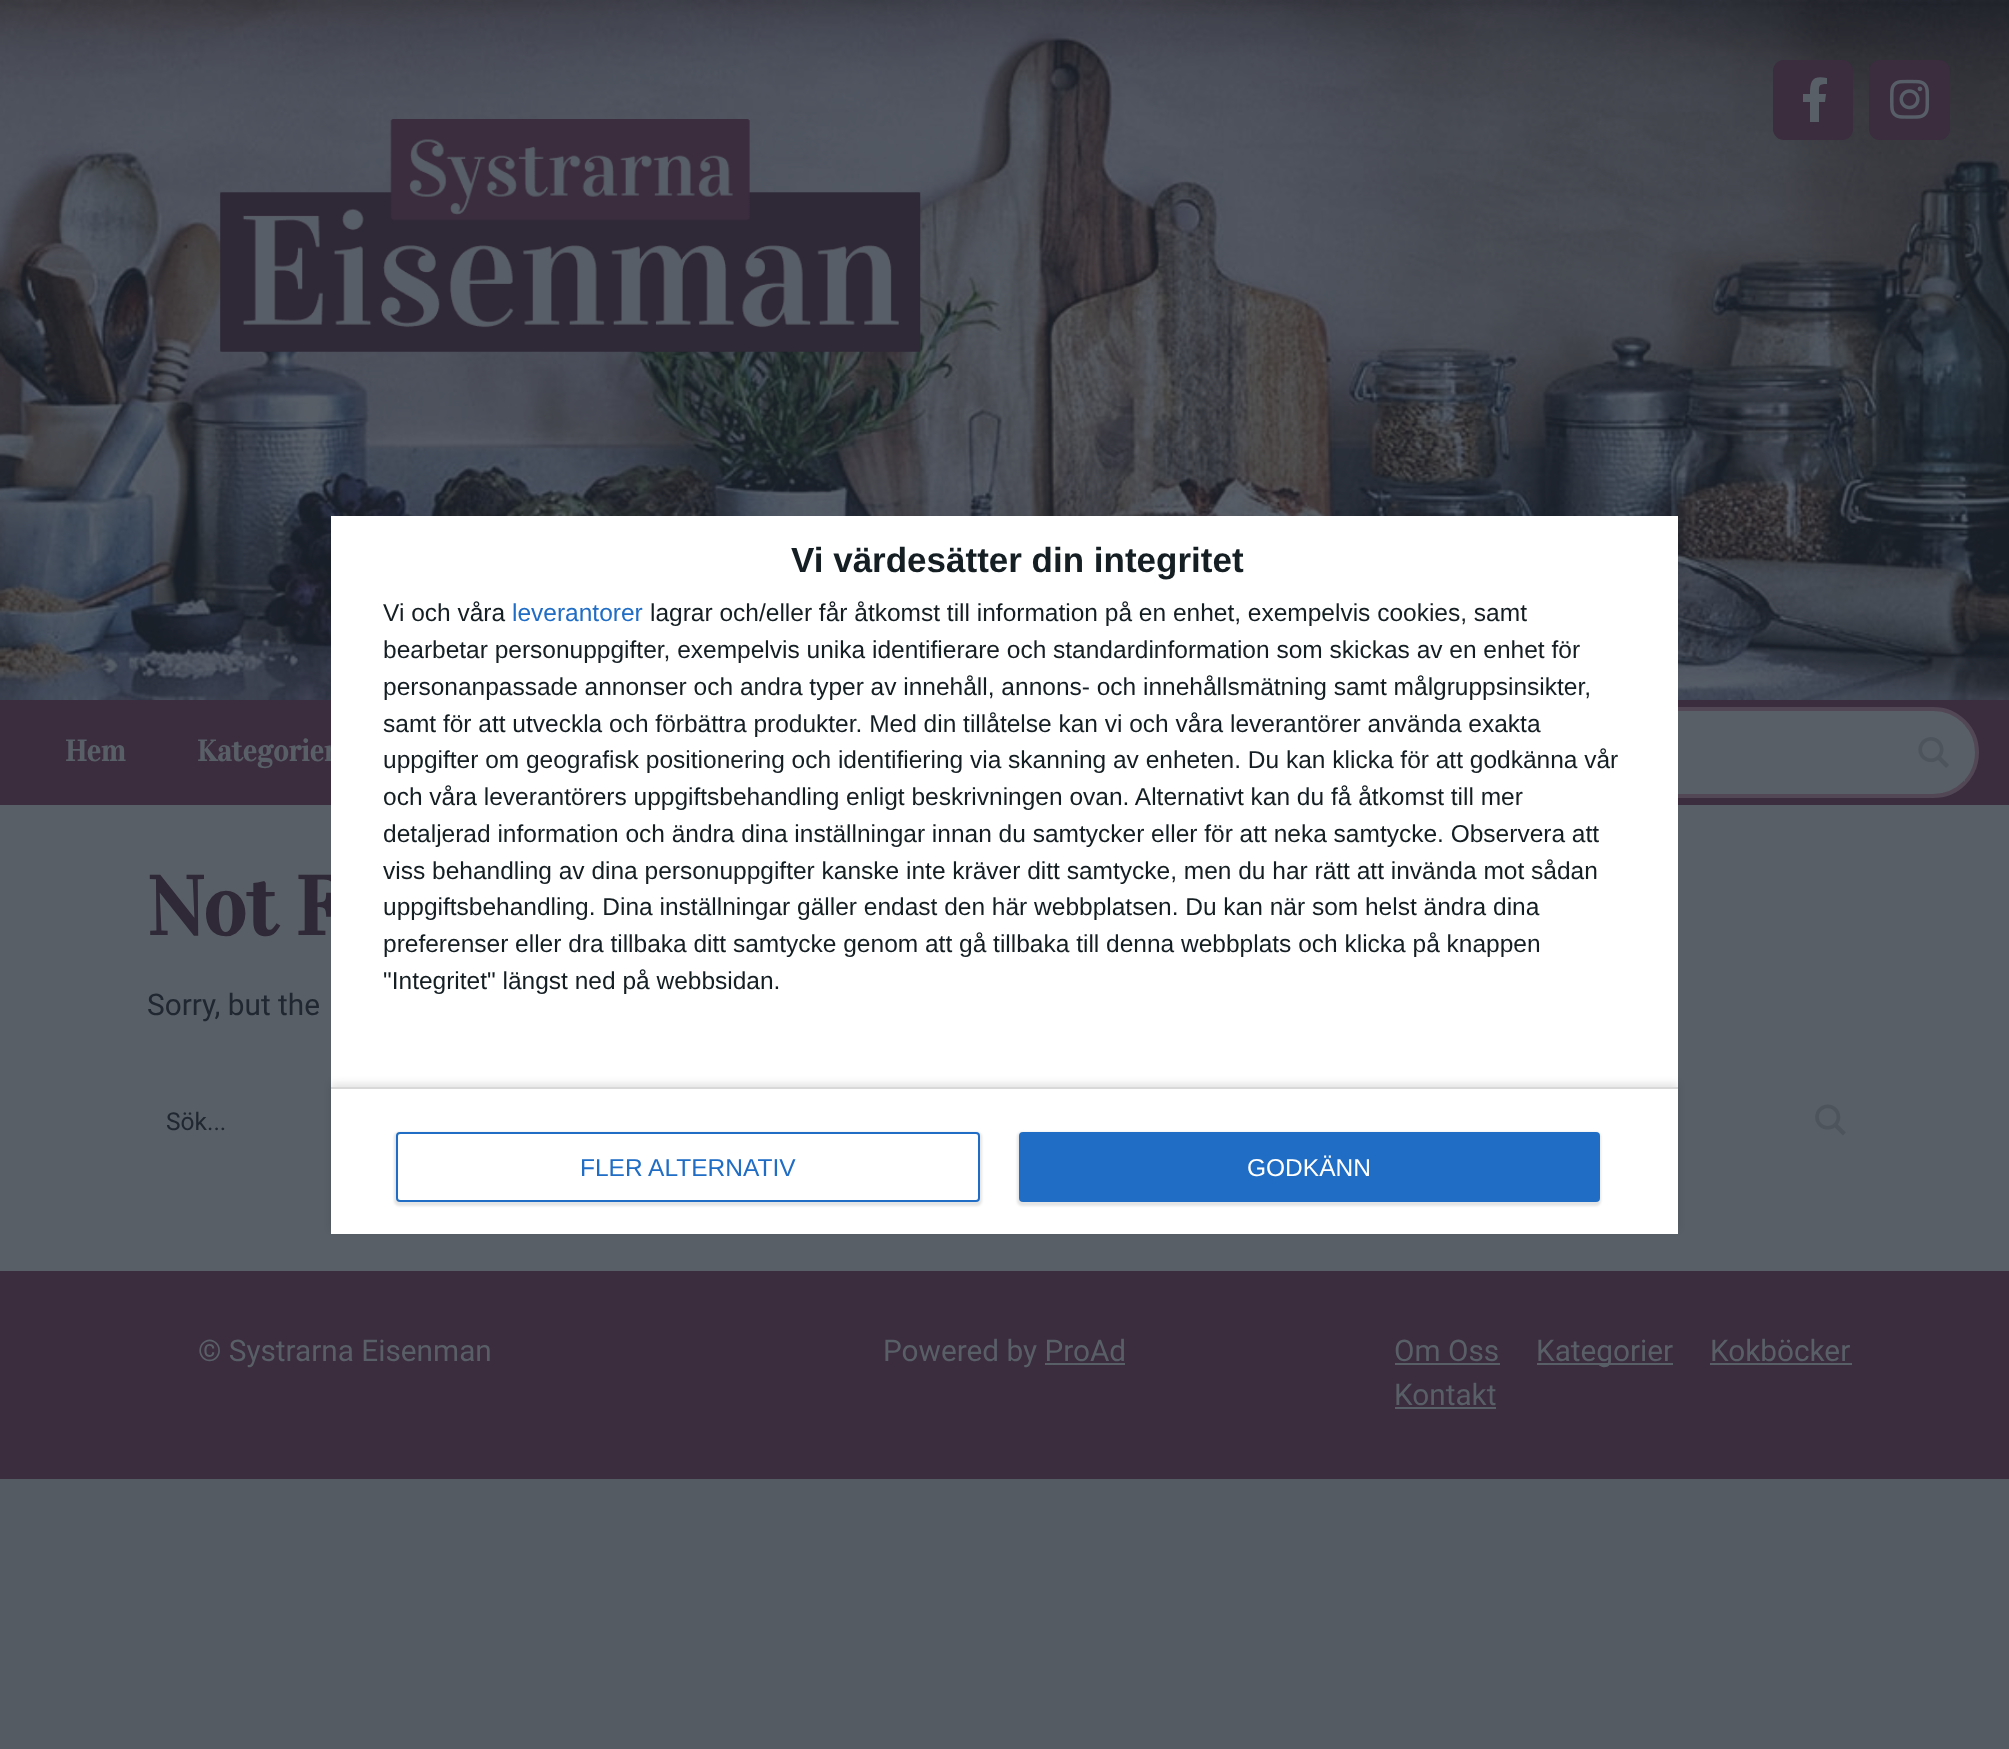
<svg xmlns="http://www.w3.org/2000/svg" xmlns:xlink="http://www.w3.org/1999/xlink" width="2009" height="1749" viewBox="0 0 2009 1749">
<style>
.cls-1{font:bold 29.75px Vidaloka;fill:#595f67}
.cls-2{font:bold 83px Vidaloka;fill:#2f2836}
.cls-3{font:24.5px Liberation Sans;fill:#ffffff}
.cls-4{font:24.5px Liberation Sans;fill:#206dc5}
.cls-5{font:24.5px Liberation Sans;fill:#141e23}
.cls-6{font:bold 35px Liberation Sans;fill:#141e23}
.cls-7{font:29.75px Roboto;fill:#212730}
.cls-8{font:24.5px Roboto;fill:#212730}
.cls-9{font:29.75px Roboto;fill:#595f67}
</style>
<defs>
<clipPath id="clip1"><rect x="1902" y="721" width="63" height="63"/></clipPath>
<clipPath id="clip2"><path d="M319 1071H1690V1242H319ZM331 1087H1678V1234H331Z" clip-rule="evenodd"/></clipPath>
</defs>
<rect width="100%" height="100%" fill="#555b62"/>
<rect fill="#595f67" x="0" y="805" width="2009" height="466"/>
<image xlink:href="image0.png" x="0" y="0" width="2009" height="700"/>
<rect fill="#3b2c3e" x="1773" y="60" width="80" height="80" rx="11"/>
<path fill="#595f67" d="M1825 102L1826 94H1819C1819 86 1818 84 1827 84V78C1812 75 1810 81 1810 94H1803V102H1810V122H1819V102Z"/>
<rect fill="#3b2c3e" x="1869" y="60" width="81" height="80" rx="11"/>
<image xlink:href="image1.png" x="1890" y="79" width="40" height="40"/>
<image xlink:href="image2.png" x="220" y="119" width="701" height="233"/>
<rect fill="#3b2c3e" x="0" y="700" width="2009" height="105"/>
<rect fill="#595f67" stroke="#524755" stroke-width="4" x="1456" y="709" width="521" height="87" rx="43.5"/>
<g clip-path="url(#clip1)">
<path fill="#595f67" fill-opacity="0.64" fill-rule="evenodd" d="M1900 723V786H1960C1953 792 1944 795 1934 795H1729V711H1934C1945 711 1956 716 1963 723ZM1964 782C1980 766 1980 740 1964 724Z"/>
</g>
<image xlink:href="image3.png" x="1918" y="737" width="31" height="31"/>
<image xlink:href="image4.png" x="1815" y="1104" width="31" height="32"/>
<rect fill="#3b2c3e" x="0" y="1271" width="2009" height="208"/>
<rect fill="#595f67" x="1045" y="1363" width="80" height="2"/>
<rect fill="#595f67" x="1395" y="1363" width="105" height="2"/>
<rect fill="#595f67" x="1537" y="1363" width="136" height="2"/>
<rect fill="#595f67" x="1710" y="1363" width="142" height="2"/>
<rect fill="#595f67" x="1395" y="1407" width="101" height="2"/>
<text class="cls-1" x="65" y="761">Hem</text>
<text class="cls-1" x="197" y="761">Kategorier</text>
<text class="cls-2" x="147" y="935">Not F</text>
<rect fill="#ffffff" x="331" y="516" width="1347" height="718"/>
<rect fill="#000000" fill-opacity="0.1" filter="blur(1px)" x="1017" y="1132" width="584" height="74" rx="5"/>
<g clip-path="url(#clip2)">
<rect fill="#000000" fill-opacity="0.1" filter="blur(3.5px)" x="331" y="1083" width="1347" height="147"/>
</g>
<rect fill="#206dc5" x="1019" y="1132" width="581" height="70" rx="4"/>
<text class="cls-3" x="1247" y="1176">GODKÄNN</text>
<rect fill="#000000" fill-opacity="0.1" filter="blur(1px)" x="394" y="1132" width="588" height="74" rx="5"/>
<rect fill="#ffffff" stroke="#206dc5" stroke-width="2" x="397" y="1133" width="582" height="68" rx="3"/>
<text class="cls-4" x="580" y="1176">FLER ALTERNATIV</text>
<rect fill="#d8d8d8" x="331" y="1087" width="1347" height="2"/>
<text class="cls-4" x="512" y="621">leverantorer</text>
<text class="cls-5" x="383" y="989">"Integritet" längst ned på webbsidan.</text>
<text class="cls-5" x="383" y="952">preferenser eller dra tillbaka ditt samtycke genom att gå tillbaka till denna webbplats och klicka på knappen</text>
<text class="cls-5" x="383" y="915">uppgiftsbehandling. Dina inställningar gäller endast den här webbplatsen. Du kan när som helst ändra dina</text>
<text class="cls-5" x="383" y="879">viss behandling av dina personuppgifter kanske inte kräver ditt samtycke, men du har rätt att invända mot sådan</text>
<text class="cls-5" x="383" y="842">detaljerad information och ändra dina inställningar innan du samtycker eller för att neka samtycke. Observera att</text>
<text class="cls-5" x="383" y="805">och våra leverantörers uppgiftsbehandling enligt beskrivningen ovan. Alternativt kan du få åtkomst till mer</text>
<text class="cls-5" x="383" y="768">uppgifter om geografisk positionering och identifiering via skanning av enheten. Du kan klicka för att godkänna vår</text>
<text class="cls-5" x="383" y="732">samt för att utveckla och förbättra produkter. Med din tillåtelse kan vi och våra leverantörer använda exakta</text>
<text class="cls-5" x="383" y="695">personanpassade annonser och andra typer av innehåll, annons- och innehållsmätning samt målgruppsinsikter,</text>
<text class="cls-5" x="383" y="658">bearbetar personuppgifter, exempelvis unika identifierare och standardinformation som skickas av en enhet för</text>
<text class="cls-5" x="650" y="621">lagrar och/eller får åtkomst till information på en enhet, exempelvis cookies, samt</text>
<text class="cls-5" x="383" y="621">Vi och våra</text>
<text class="cls-6" x="791" y="572">Vi värdesätter din integritet</text>
<text class="cls-7" x="147" y="1015">Sorry, but the</text>
<text class="cls-8" x="166" y="1130">Sök...</text>
<text class="cls-9" x="198" y="1361">© Systrarna Eisenman</text>
<text class="cls-9" x="883" y="1361">Powered by ProAd</text>
<text class="cls-9" x="1394" y="1361">Om Oss</text>
<text class="cls-9" x="1536" y="1361">Kategorier</text>
<text class="cls-9" x="1710" y="1361">Kokböcker</text>
<text class="cls-9" x="1394" y="1405">Kontakt</text>
</svg>
